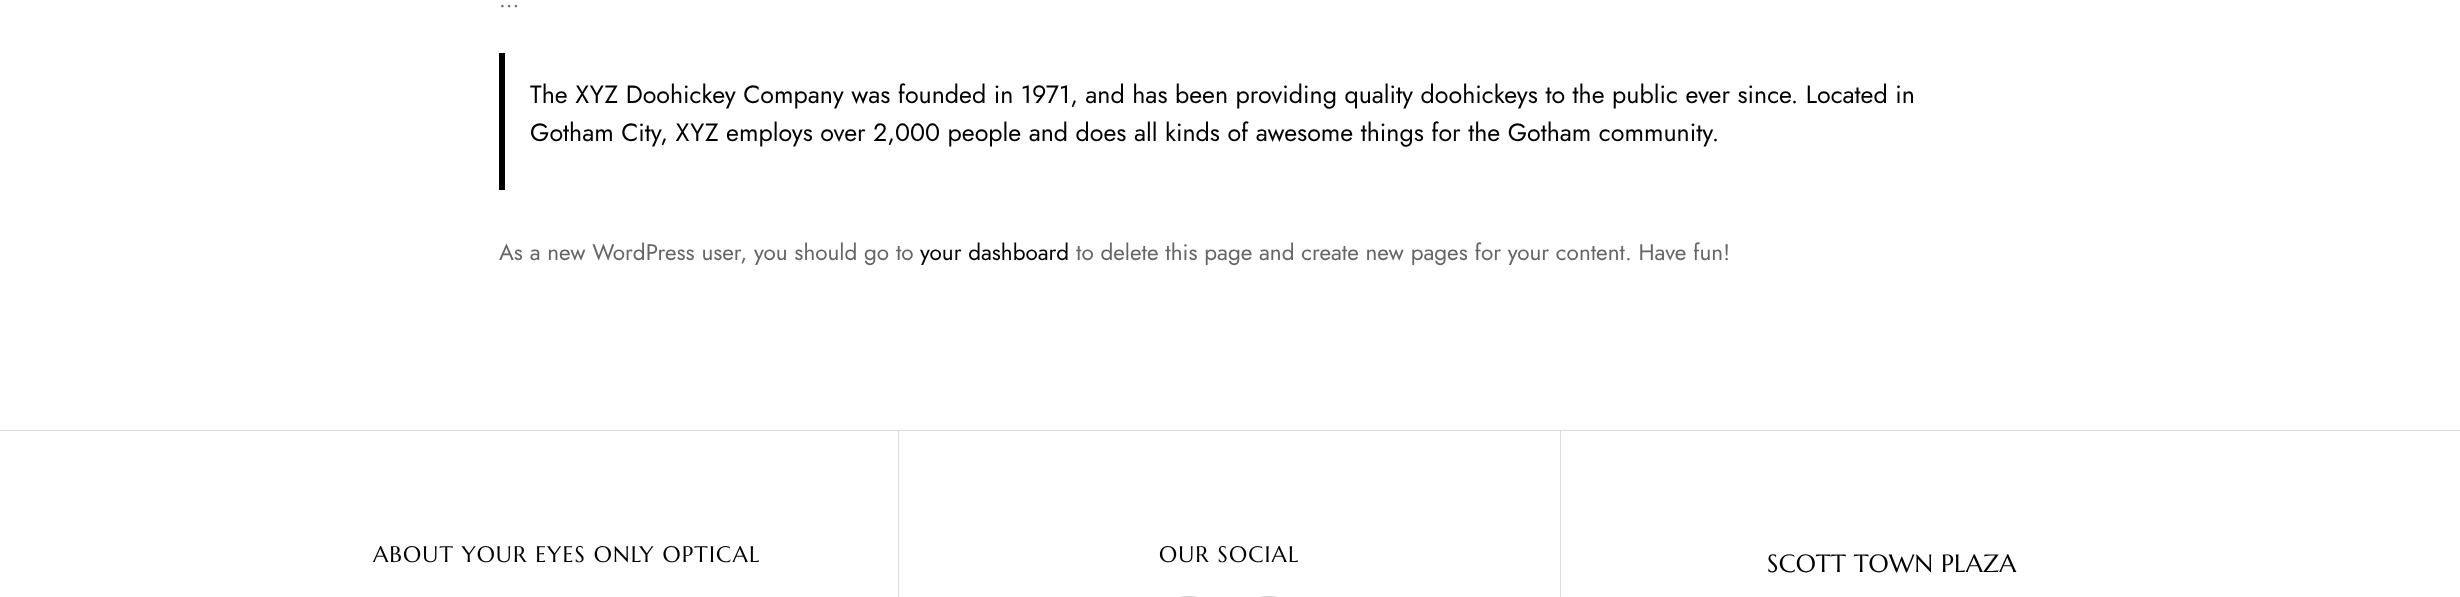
<svg xmlns="http://www.w3.org/2000/svg" xmlns:xlink="http://www.w3.org/1999/xlink" width="2460" height="597" viewBox="0 0 2460 597">
<style>
.cls-1{font:22.5px Jost;fill:#666666}
.cls-2{font:25px Jost;fill:#000000}
.cls-3{font:22.5px Jost;fill:#000000}
.cls-4{font:22.5px Marcellus;letter-spacing:1.1px;fill:#000000}
.cls-5{font:25px Marcellus;letter-spacing:0.25px;fill:#000000}
</style>
<rect width="100%" height="100%" fill="#ffffff"/>
<rect fill="#000000" x="499" y="53" width="6" height="137"/>
<rect fill="#dbdbdb" x="0" y="430" width="2460" height="1"/>
<rect fill="#dbdbdb" x="898" y="431" width="1" height="166"/>
<rect fill="#dbdbdb" x="1560" y="431" width="1" height="166"/>
<rect fill="none" stroke="#cdcdcd" x="1164.5" y="596.5" width="49" height="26" rx="24.5"/>
<rect fill="none" stroke="#cdcdcd" x="1244.5" y="596.5" width="49" height="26" rx="24.5"/>
<text class="cls-1" x="499" y="7">…</text>
<text class="cls-2"><tspan x="530" y="103">The XYZ Doohickey Company was founded in 1971, and has been providing quality doohickeys to the public ever since. Located in</tspan><tspan x="530" y="141">Gotham City, XYZ employs over 2,000 people and does all kinds of awesome things for the Gotham community.</tspan></text>
<text class="cls-1" x="499" y="260">As a new WordPress user, you should go to</text>
<text class="cls-3" x="920" y="260">your dashboard</text>
<text class="cls-1" x="1076" y="260">to delete this page and create new pages for your content. Have fun!</text>
<text class="cls-4" x="373" y="562">ABOUT YOUR EYES ONLY OPTICAL</text>
<text class="cls-4" x="1159" y="562">OUR SOCIAL</text>
<text class="cls-5" x="1767" y="572">SCOTT TOWN PLAZA</text>
</svg>
